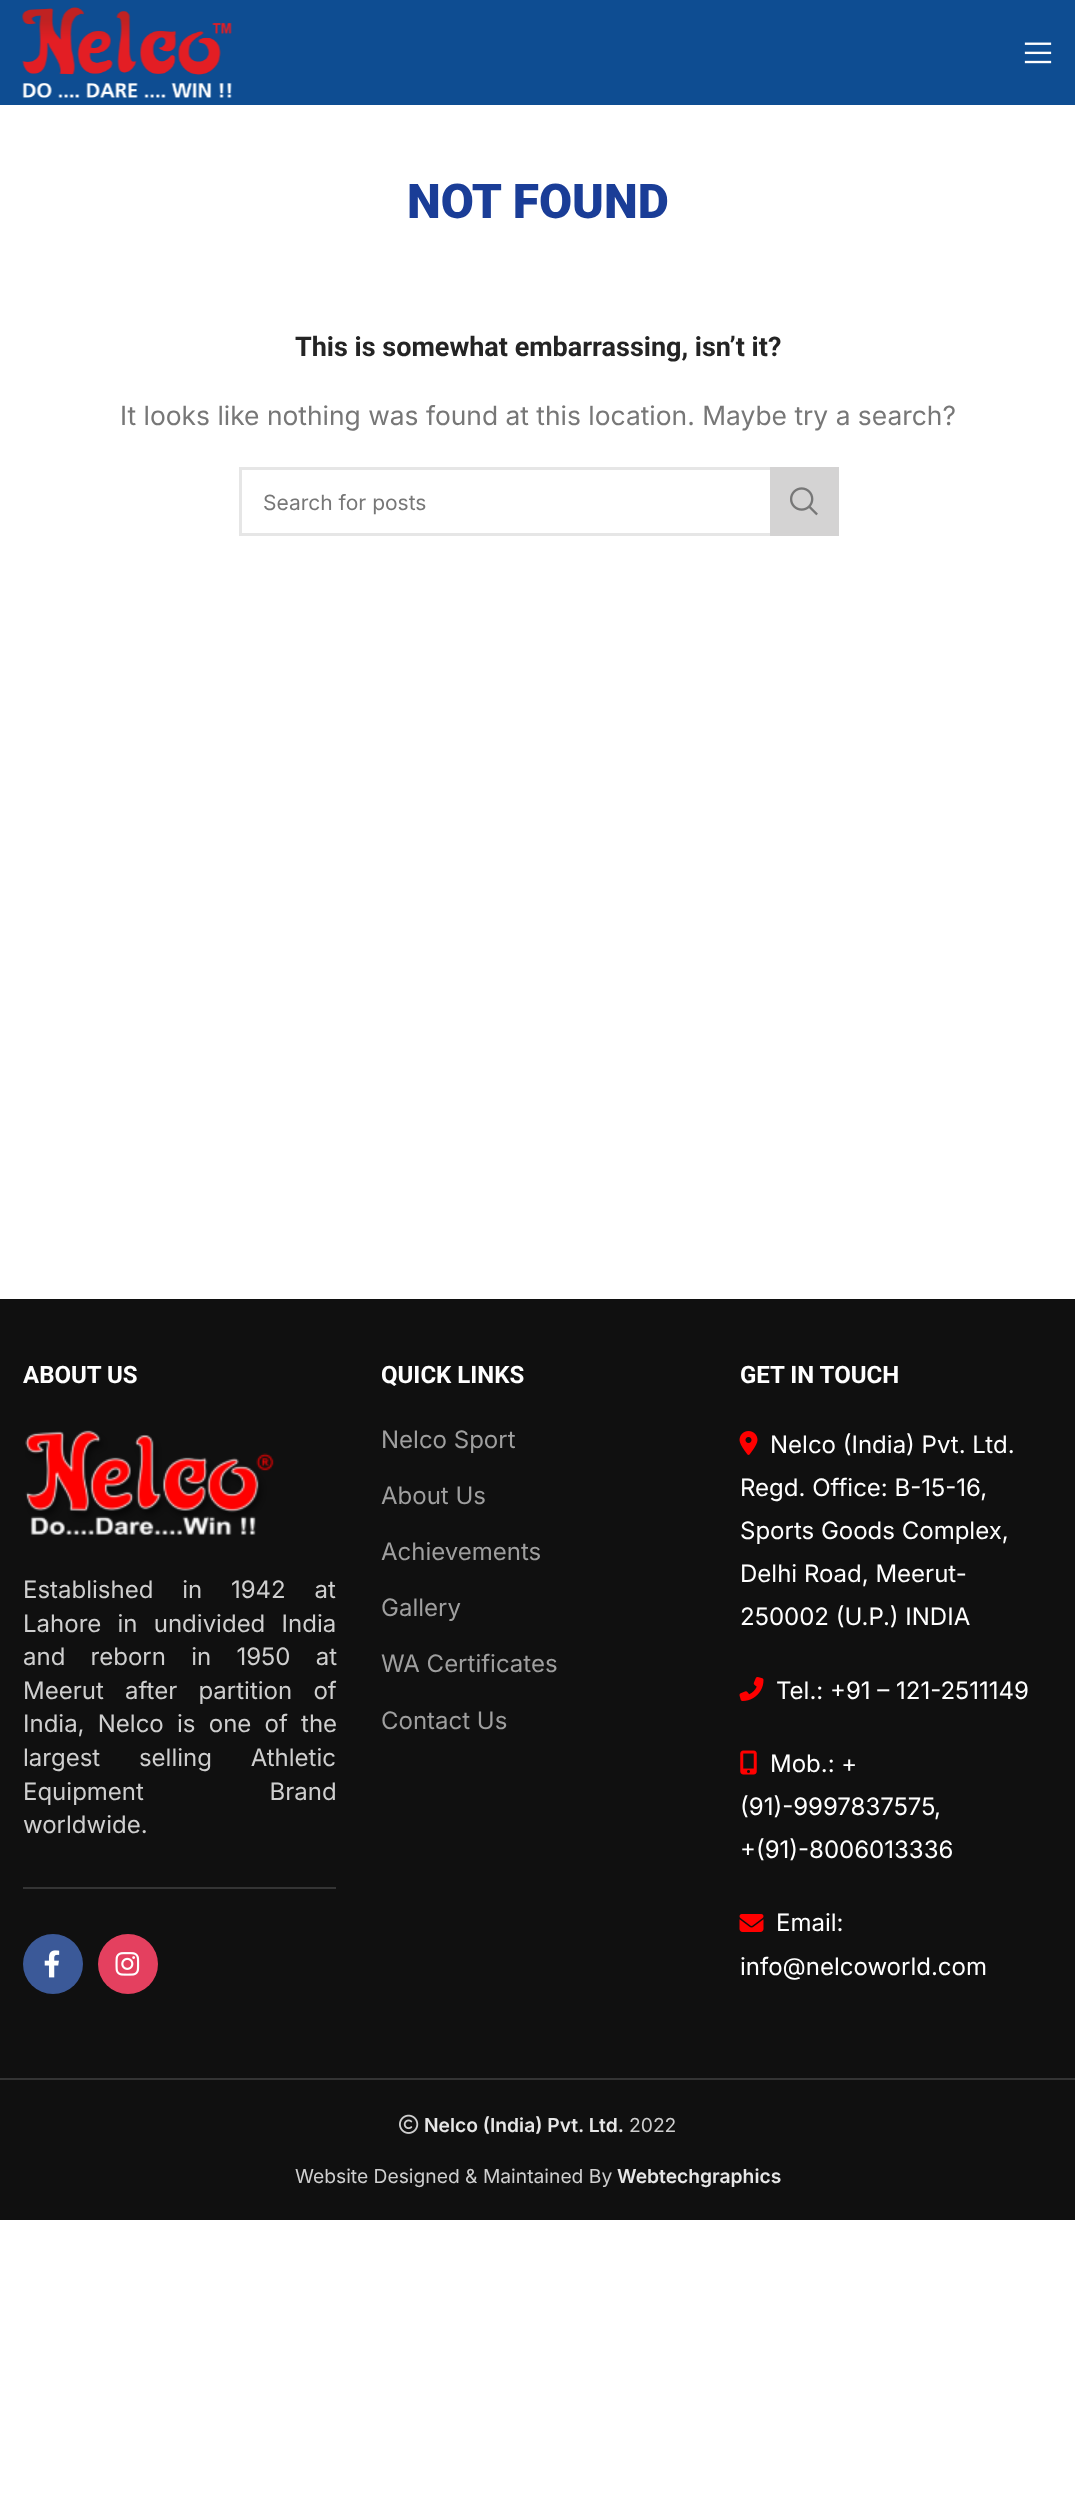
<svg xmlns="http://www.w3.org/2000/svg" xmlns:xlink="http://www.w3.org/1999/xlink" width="1075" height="2508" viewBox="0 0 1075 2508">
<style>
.cls-1{font:900 48px Roboto;fill:#1a3d97}
.cls-2{font:bold 27px Roboto;fill:#242424}
.cls-3{font:26.4px Inter;fill:#777777}
.cls-4{font:21px Inter;fill:#777777}
.cls-5{font:bold 24px Roboto;fill:#ffffff}
.cls-6{font:24px Inter;fill:#cfcfcf}
.cls-7{font:24px Inter;fill:#9f9f9f}
.cls-8{font:24px Inter;fill:#ffffff}
.cls-9{font:600 19.25px Inter;fill:#e7e7e7}
.cls-10{font:19.25px Inter;fill:#cfcfcf}
</style>
<rect width="100%" height="100%" fill="#ffffff"/>
<rect fill="#0e4d92" x="0" y="0" width="1075" height="105"/>
<image xlink:href="image0.png" x="22" y="7" width="210" height="91"/>
<image xlink:href="image1.png" x="1024" y="42" width="28" height="22"/>
<rect fill="none" stroke="#e6e6e6" stroke-width="3" x="240.5" y="468.5" width="597" height="66"/>
<rect fill="#d4d3d3" x="770" y="467" width="69" height="69"/>
<image xlink:href="image2.png" x="790" y="487" width="28" height="29"/>
<rect fill="#101010" x="0" y="1299" width="1075" height="921"/>
<rect fill="#343434" x="23" y="1887" width="313" height="2"/>
<image xlink:href="image3.png" x="25" y="1430" width="249" height="105"/>
<circle fill="#3b5998" cx="53" cy="1964" r="30"/>
<image xlink:href="image4.png" x="44" y="1950" width="16" height="28"/>
<circle fill="#e4405f" cx="128" cy="1964" r="30"/>
<image xlink:href="image5.png" x="115" y="1952" width="25" height="24"/>
<image xlink:href="image6.png" x="739" y="1431" width="19" height="24"/>
<image xlink:href="image7.png" x="739" y="1677" width="25" height="24"/>
<image xlink:href="image8.png" x="740" y="1750" width="17" height="25"/>
<image xlink:href="image9.png" x="739" y="1914" width="25" height="18"/>
<rect fill="#343434" x="0" y="2078" width="1075" height="2"/>
<image xlink:href="image10.png" x="399" y="2114" width="20" height="20"/>
<text class="cls-1" x="407" y="218">NOT FOUND</text>
<text class="cls-2" x="295" y="356">This is somewhat embarrassing, isn’t it?</text>
<text class="cls-3" x="120" y="425">It looks like nothing was found at this location. Maybe try a search?</text>
<text class="cls-4" x="263" y="510">Search for posts</text>
<text class="cls-5" x="23" y="1383">ABOUT US</text>
<text class="cls-6"><tspan x="23" y="1598" word-spacing="22">Established in 1942 at</tspan><tspan x="23" y="1632" word-spacing="9.5">Lahore in undivided India</tspan><tspan x="23" y="1665" word-spacing="18.5">and reborn in 1950 at</tspan><tspan x="23" y="1699" word-spacing="14.5">Meerut after partition of</tspan><tspan x="23" y="1732" word-spacing="6.5">India, Nelco is one of the</tspan><tspan x="23" y="1766" word-spacing="32">largest selling Athletic</tspan><tspan x="23" y="1800" word-spacing="119">Equipment Brand</tspan><tspan x="23" y="1833">worldwide.</tspan></text>
<text class="cls-5" x="381" y="1383">QUICK LINKS</text>
<text class="cls-7" x="381" y="1448">Nelco Sport</text>
<text class="cls-7" x="381" y="1504">About Us</text>
<text class="cls-7" x="381" y="1560">Achievements</text>
<text class="cls-7" x="381" y="1616">Gallery</text>
<text class="cls-7" x="381" y="1672">WA Certificates</text>
<text class="cls-7" x="381" y="1729">Contact Us</text>
<text class="cls-5" x="740" y="1383">GET IN TOUCH</text>
<text class="cls-8" x="770" y="1453">Nelco (India) Pvt. Ltd.</text>
<text class="cls-8"><tspan x="740" y="1496">Regd. Office: B-15-16,</tspan><tspan x="740" y="1539">Sports Goods Complex,</tspan><tspan x="740" y="1582">Delhi Road, Meerut-</tspan><tspan x="740" y="1625">250002 (U.P.) INDIA</tspan></text>
<text class="cls-8" x="776" y="1699">Tel.: +91 – 121-2511149</text>
<text class="cls-8" x="770" y="1772">Mob.: +</text>
<text class="cls-8" x="740" y="1815">(91)-9997837575</text>
<text class="cls-8" x="934" y="1815">,</text>
<text class="cls-8" x="740" y="1858">+(91)-8006013336</text>
<text class="cls-8" x="776" y="1931">Email:</text>
<text class="cls-8" x="740" y="1975">info@nelcoworld.com</text>
<text class="cls-9" x="424" y="2132">Nelco (India) Pvt. Ltd.</text>
<text class="cls-10" x="629" y="2132">2022</text>
<text class="cls-10" x="295" y="2183">Website Designed &amp; Maintained By</text>
<text class="cls-9" x="617" y="2183">Webtechgraphics</text>
</svg>
